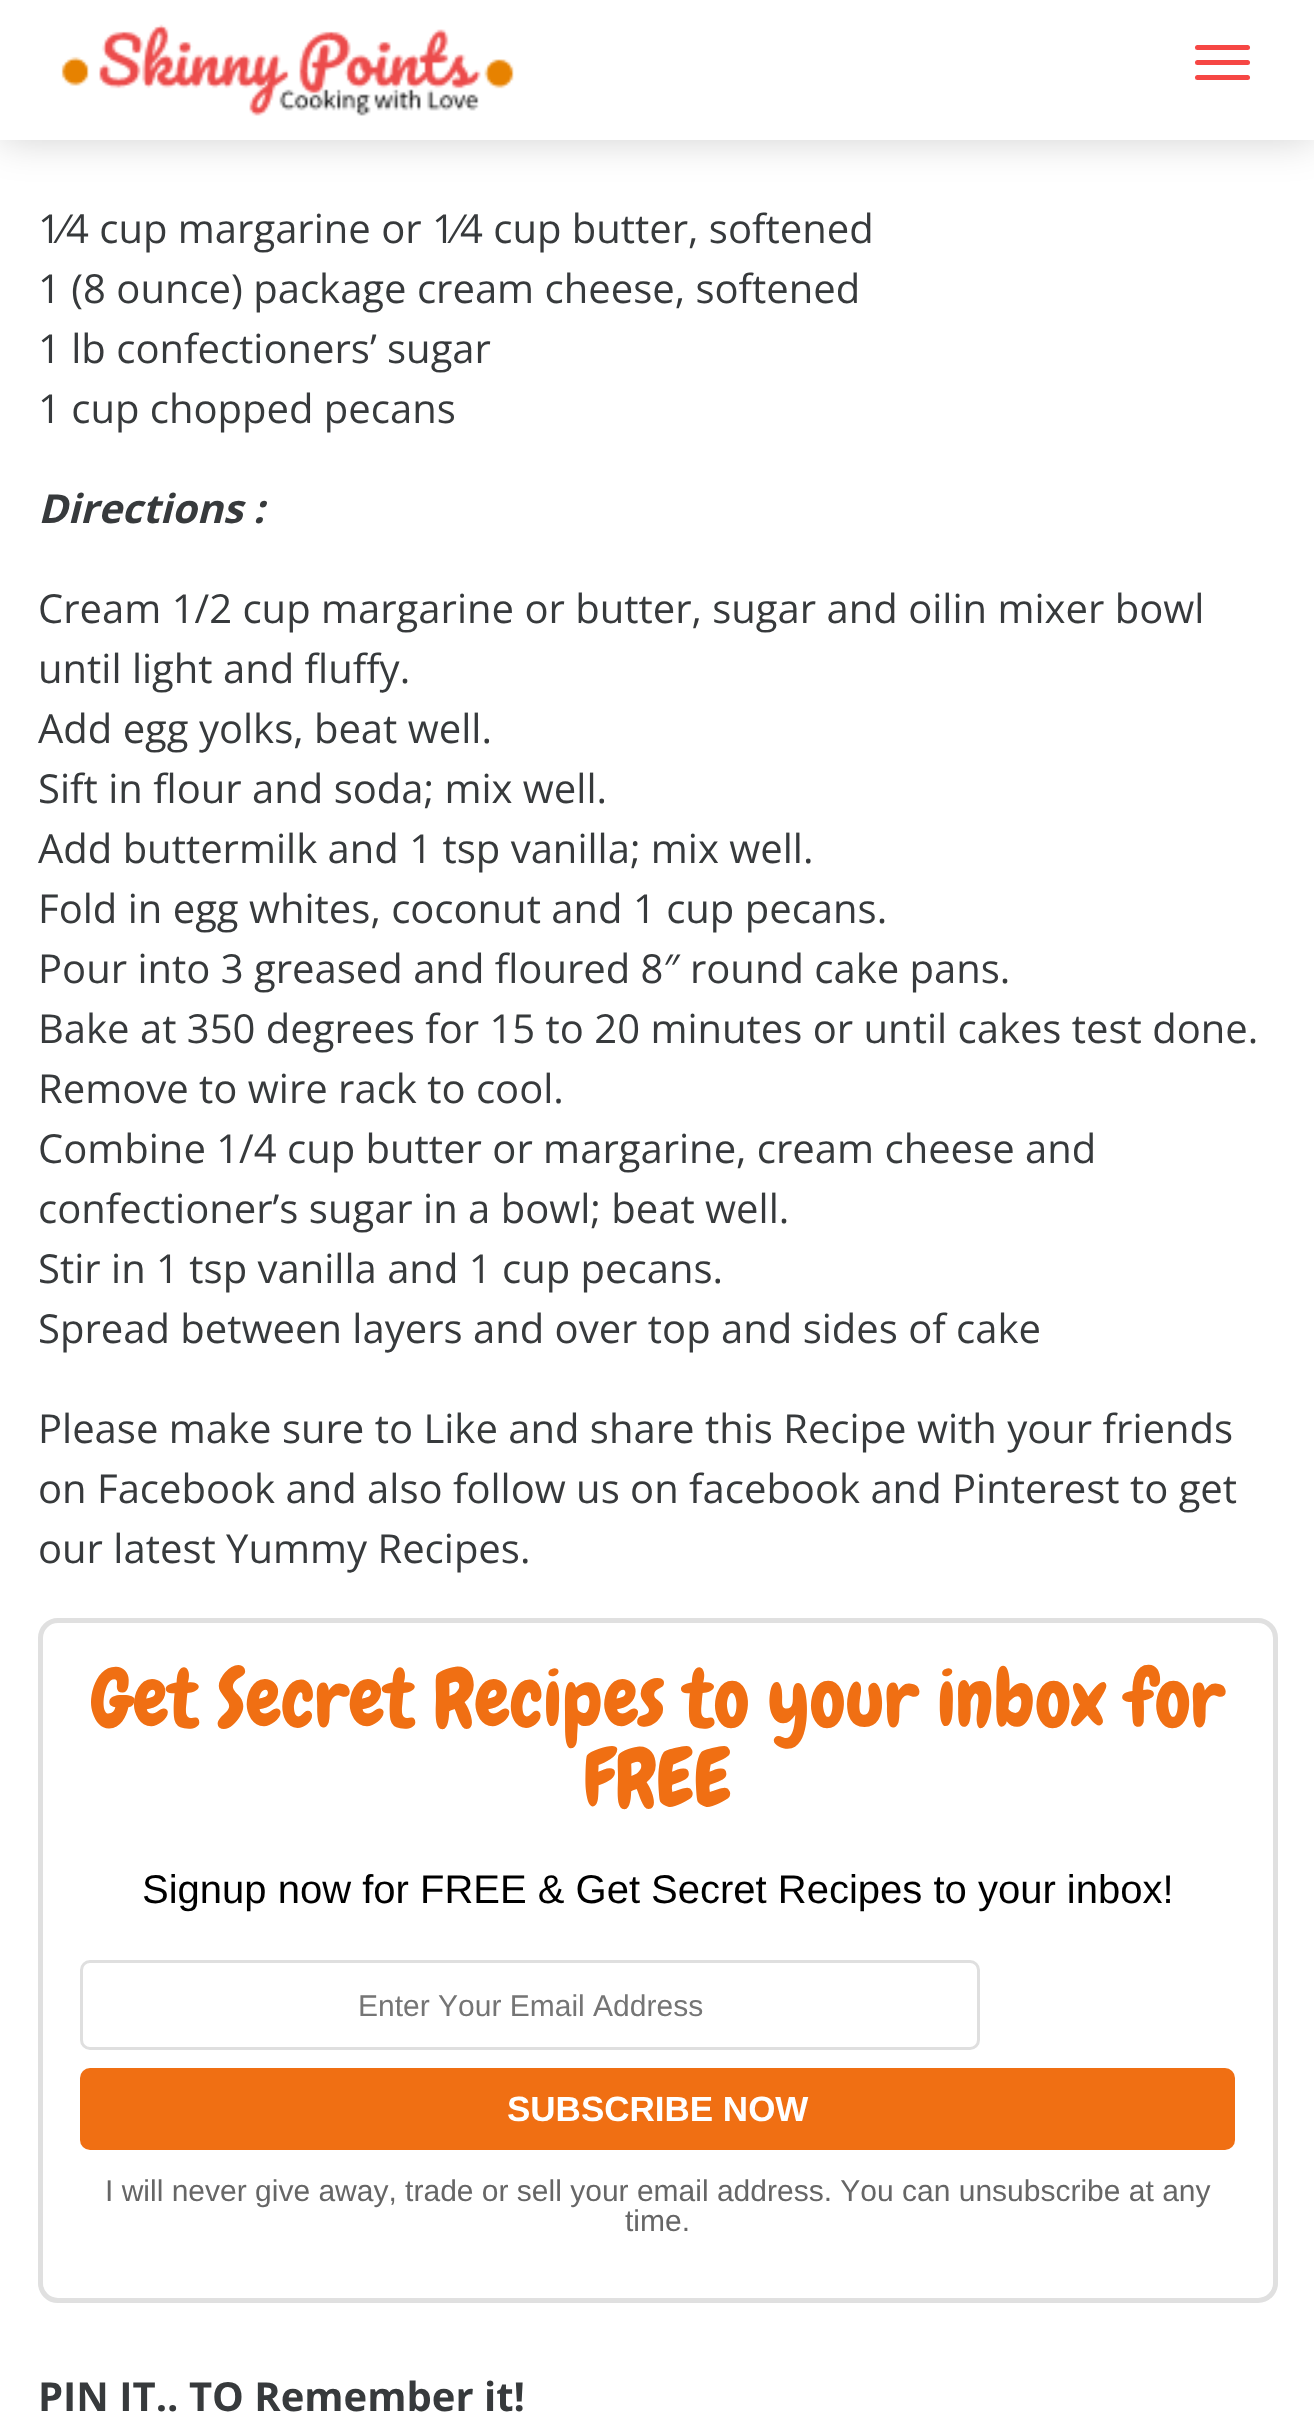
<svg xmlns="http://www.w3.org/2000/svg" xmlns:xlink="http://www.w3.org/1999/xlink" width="1314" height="2412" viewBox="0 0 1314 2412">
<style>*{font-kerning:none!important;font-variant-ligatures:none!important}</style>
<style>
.cls-1{font:40px Open Sans;fill:#373a3c}
.cls-2{font:italic bold 40px Open Sans;fill:#373a3c}
.cls-3{font:80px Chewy;fill:#f06f13}
.cls-4{font:40px Liberation Sans;fill:#000000}
.cls-5{font:30px Liberation Sans;fill:#757575}
.cls-6{font:bold 35px Liberation Sans;fill:#ffffff}
.cls-7{font:30px Liberation Sans;fill:#666666}
.cls-8{font:bold 40px Open Sans;fill:#373a3c}
</style>
<rect width="100%" height="100%" fill="#ffffff"/>
<rect fill="#000000" fill-opacity="0.18" filter="blur(20px)" x="0" y="0" width="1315" height="140"/>
<rect fill="#ffffff" x="0" y="0" width="1314" height="140"/>
<image xlink:href="image0.png" x="61" y="24" width="453" height="92"/>
<rect fill="#f64744" x="1195" y="45" width="55" height="5" rx="2.5"/>
<rect fill="#f64744" x="1195" y="60" width="55" height="5" rx="2.5"/>
<rect fill="#f64744" x="1195" y="75" width="55" height="5" rx="2.5"/>
<rect fill="none" stroke="#e0e0e0" stroke-width="5" x="40.5" y="1620.5" width="1235" height="680" rx="17.5"/>
<rect fill="none" stroke="#dfdfdf" stroke-width="3" x="81.5" y="1961.5" width="897" height="87" rx="8.5"/>
<rect fill="#f06f13" x="80" y="2068" width="1155" height="82" rx="10"/>
<text class="cls-1"><tspan x="38" y="243">1⁄4 cup margarine or 1⁄4 cup butter, softened</tspan><tspan x="38" y="303">1 (8 ounce) package cream cheese, softened</tspan><tspan x="38" y="363">1 lb confectioners’ sugar</tspan><tspan x="38" y="423">1 cup chopped pecans</tspan></text>
<text class="cls-2" x="38" y="523">Directions :</text>
<text class="cls-1"><tspan x="38" y="623">Cream 1/2 cup margarine or butter, sugar and oilin mixer bowl</tspan><tspan x="38" y="683">until light and fluffy.</tspan><tspan x="38" y="743">Add egg yolks, beat well.</tspan><tspan x="38" y="803">Sift in flour and soda; mix well.</tspan><tspan x="38" y="863">Add buttermilk and 1 tsp vanilla; mix well.</tspan><tspan x="38" y="923">Fold in egg whites, coconut and 1 cup pecans.</tspan><tspan x="38" y="983">Pour into 3 greased and floured 8″ round cake pans.</tspan><tspan x="38" y="1043">Bake at 350 degrees for 15 to 20 minutes or until cakes test done.</tspan><tspan x="38" y="1103">Remove to wire rack to cool.</tspan><tspan x="38" y="1163">Combine 1/4 cup butter or margarine, cream cheese and</tspan><tspan x="38" y="1223">confectioner’s sugar in a bowl; beat well.</tspan><tspan x="38" y="1283">Stir in 1 tsp vanilla and 1 cup pecans.</tspan><tspan x="38" y="1343">Spread between layers and over top and sides of cake</tspan></text>
<text class="cls-1"><tspan x="38" y="1443">Please make sure to Like and share this Recipe with your friends</tspan><tspan x="38" y="1503">on Facebook and also follow us on facebook and Pinterest to get</tspan><tspan x="38" y="1563">our latest Yummy Recipes.</tspan></text>
<text class="cls-3" x="91" y="1726">Get Secret Recipes to your inbox for</text>
<text class="cls-3" x="583" y="1806">FREE</text>
<text class="cls-4" x="142" y="1903">Signup now for FREE &amp; Get Secret Recipes to your inbox!</text>
<text class="cls-5" x="358" y="2016">Enter Your Email Address</text>
<text class="cls-6" x="507" y="2121">SUBSCRIBE NOW</text>
<text class="cls-7" x="105" y="2201">I will never give away, trade or sell your email address. You can unsubscribe at any</text>
<text class="cls-7" x="625" y="2231">time.</text>
<text class="cls-8" x="38" y="2411">PIN IT.. TO Remember it!</text>
</svg>
